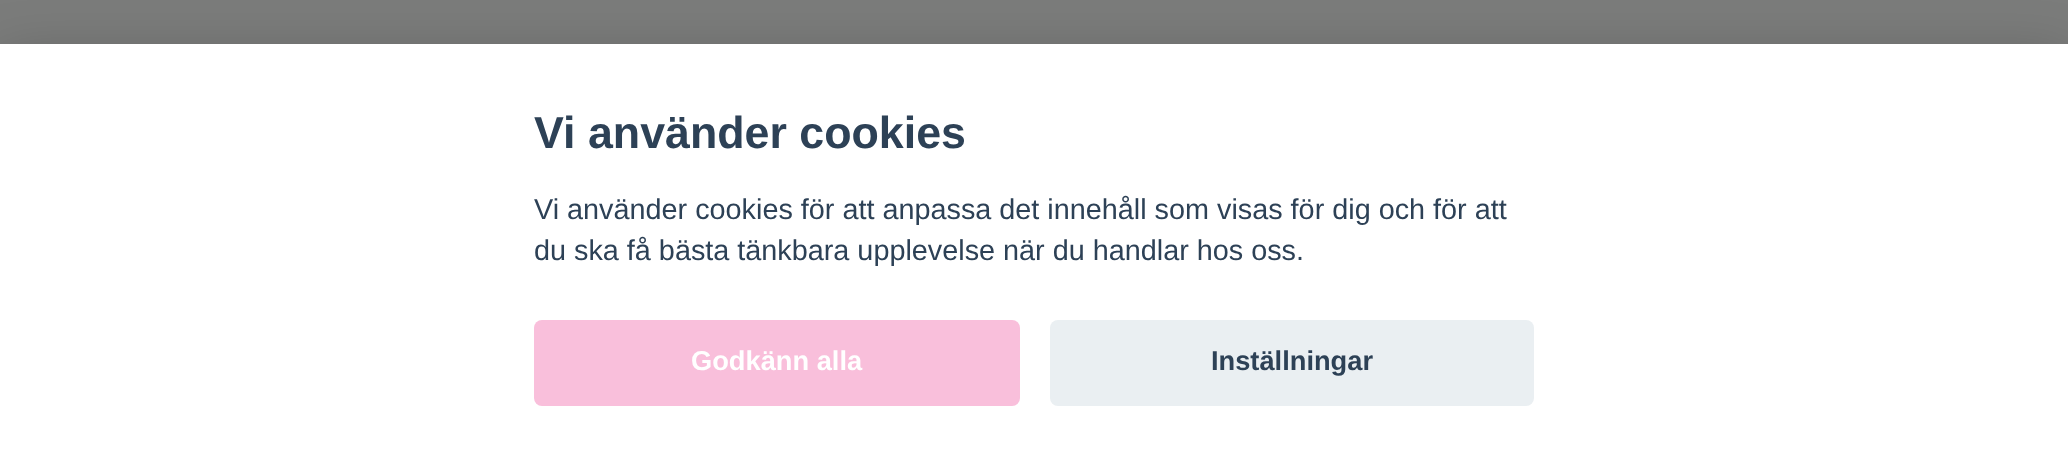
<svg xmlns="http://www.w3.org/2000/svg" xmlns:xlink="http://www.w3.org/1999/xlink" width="2068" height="469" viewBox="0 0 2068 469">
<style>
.cls-1{font:bold 44.75px Liberation Sans;fill:#2d4156}
.cls-2{font:28.8px Liberation Sans;fill:#2d4156}
.cls-3{font:bold 27.25px Liberation Sans;fill:#ffffff}
.cls-4{font:bold 27.25px Liberation Sans;fill:#2d4156}
</style>
<rect width="100%" height="100%" fill="#7b7c7b"/>
<rect fill="#020203" fill-opacity="0.28" filter="blur(30px)" x="0" y="64" width="2068" height="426"/>
<rect fill="#ffffff" x="0" y="44" width="2068" height="425"/>
<rect fill="#f9bfdb" x="534" y="320" width="486" height="86" rx="8"/>
<rect fill="#eaeff2" x="1050" y="320" width="484" height="86" rx="8"/>
<text class="cls-1" x="534" y="148">Vi använder cookies</text>
<text class="cls-2"><tspan x="534" y="219">Vi använder cookies för att anpassa det innehåll som visas för dig och för att</tspan><tspan x="534" y="260">du ska få bästa tänkbara upplevelse när du handlar hos oss.</tspan></text>
<text class="cls-3" x="691" y="370">Godkänn alla</text>
<text class="cls-4" x="1211" y="370">Inställningar</text>
</svg>
